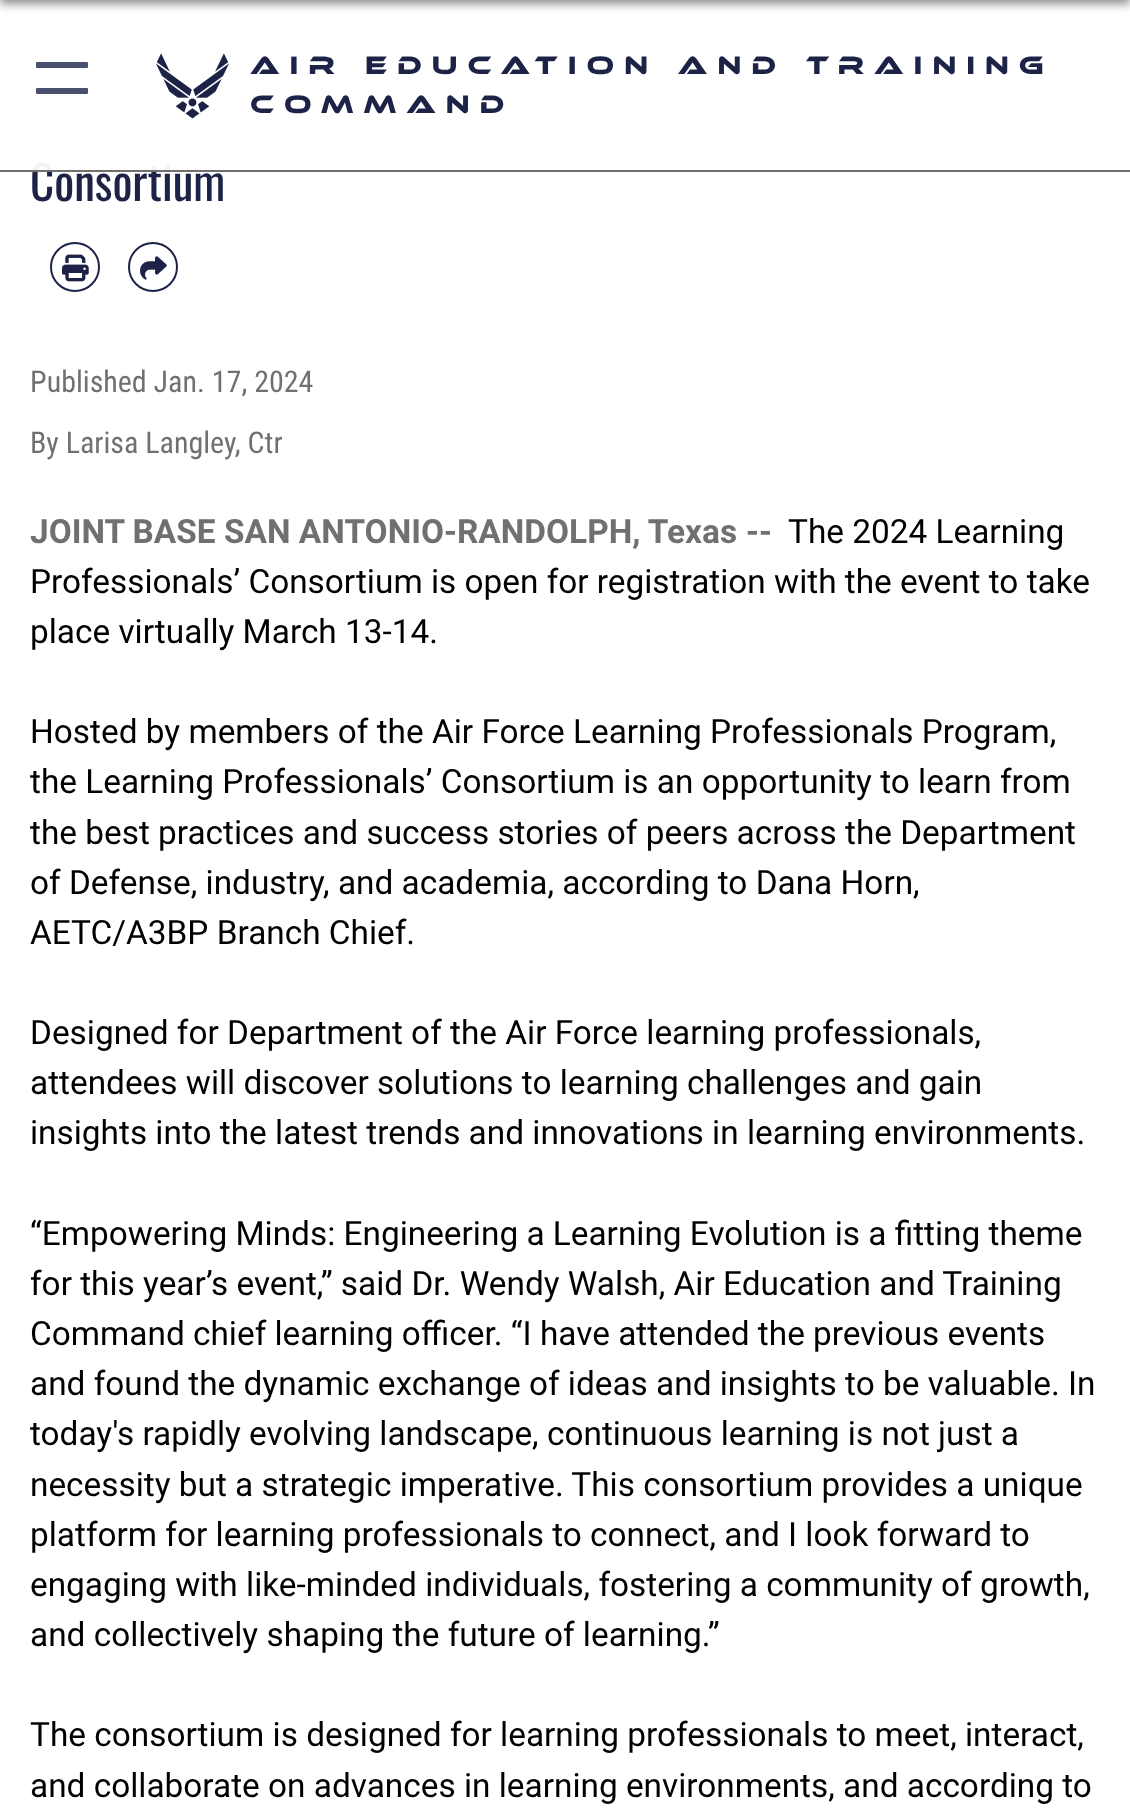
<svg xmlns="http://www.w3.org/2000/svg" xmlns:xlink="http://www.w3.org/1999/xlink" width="1130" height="1818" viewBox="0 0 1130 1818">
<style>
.cls-1{font:26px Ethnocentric;letter-spacing:10px;fill:#1c2347}
.cls-2{font:47px Oswald;fill:#1c2347}
.cls-3{font:30px Roboto Condensed;fill:#707070}
.cls-4{font:33.4px Roboto;fill:#000000}
.cls-5{font:bold 33.4px Roboto;fill:#707070}
</style>
<rect width="100%" height="100%" fill="#ffffff"/>
<rect fill="#191919" fill-opacity="0.5" filter="blur(5px)" x="0" y="-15" width="1130" height="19"/>
<rect fill="#49506d" x="36" y="62" width="52" height="6" rx="1"/>
<rect fill="#49506d" x="36" y="88" width="52" height="6" rx="1"/>
<image xlink:href="image0.png" x="156" y="53" width="73" height="66"/>
<circle fill="none" stroke="#1c2347" stroke-width="2" cx="75" cy="267" r="24"/>
<image xlink:href="image1.png" x="62" y="254" width="27" height="28"/>
<circle fill="none" stroke="#1c2347" stroke-width="2" cx="153" cy="267" r="24"/>
<image xlink:href="image2.png" x="140" y="256" width="27" height="24"/>
<text class="cls-1"><tspan x="250" y="74">Air Education and Training</tspan><tspan x="250" y="113">Command</tspan></text>
<text class="cls-2" x="30" y="201">Consortium</text>
<rect fill="#707070" x="0" y="170" width="1130" height="2"/>
<rect fill="#ffffff" fill-opacity="0.95" x="32" y="162" width="138" height="8"/>
<text class="cls-3" x="30" y="392">Published Jan. 17, 2024</text>
<text class="cls-3" x="30" y="453">By Larisa Langley, Ctr</text>
<text class="cls-4" x="788" y="543">The 2024 Learning</text>
<text class="cls-4"><tspan x="30" y="593">Professionals’ Consortium is open for registration with the event to take</tspan><tspan x="30" y="643">place virtually March 13-14.</tspan></text>
<text class="cls-4"><tspan x="30" y="743">Hosted by members of the Air Force Learning Professionals Program,</tspan><tspan x="30" y="793">the Learning Professionals’ Consortium is an opportunity to learn from</tspan><tspan x="30" y="844">the best practices and success stories of peers across the Department</tspan><tspan x="30" y="894">of Defense, industry, and academia, according to Dana Horn,</tspan><tspan x="30" y="944">AETC/A3BP Branch Chief.</tspan></text>
<text class="cls-4"><tspan x="30" y="1044">Designed for Department of the Air Force learning professionals,</tspan><tspan x="30" y="1094">attendees will discover solutions to learning challenges and gain</tspan><tspan x="30" y="1144">insights into the latest trends and innovations in learning environments.</tspan></text>
<text class="cls-4"><tspan x="30" y="1245">“Empowering Minds: Engineering a Learning Evolution is a fitting theme</tspan><tspan x="30" y="1295">for this year’s event,” said Dr. Wendy Walsh, Air Education and Training</tspan><tspan x="30" y="1345">Command chief learning officer. “I have attended the previous events</tspan><tspan x="30" y="1395">and found the dynamic exchange of ideas and insights to be valuable. In</tspan><tspan x="30" y="1445">today's rapidly evolving landscape, continuous learning is not just a</tspan><tspan x="30" y="1496">necessity but a strategic imperative. This consortium provides a unique</tspan><tspan x="30" y="1546">platform for learning professionals to connect, and I look forward to</tspan><tspan x="30" y="1596">engaging with like-minded individuals, fostering a community of growth,</tspan><tspan x="30" y="1646">and collectively shaping the future of learning.”</tspan></text>
<text class="cls-4"><tspan x="30" y="1746">The consortium is designed for learning professionals to meet, interact,</tspan><tspan x="30" y="1797">and collaborate on advances in learning environments, and according to</tspan></text>
<text class="cls-5" x="30" y="543">JOINT BASE SAN ANTONIO-RANDOLPH, Texas</text>
<text class="cls-5" x="746" y="543">--</text>
</svg>
